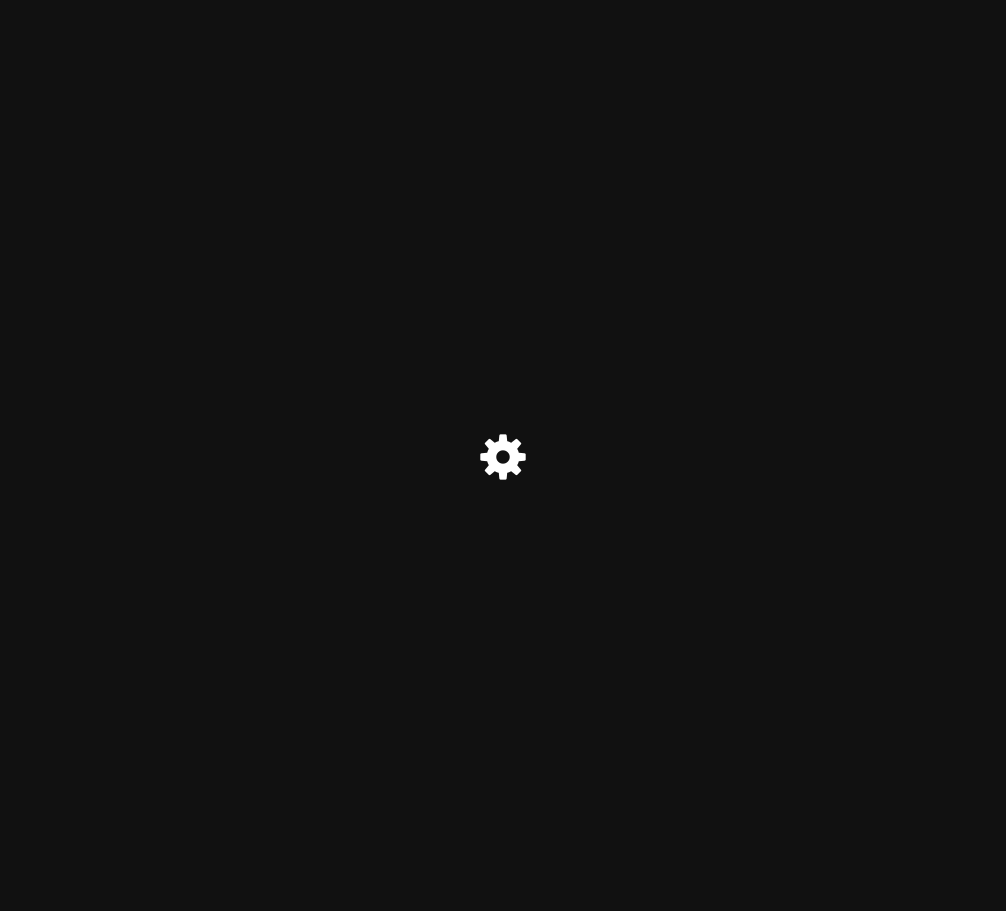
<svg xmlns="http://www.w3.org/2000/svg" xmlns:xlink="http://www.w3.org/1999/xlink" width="1006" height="911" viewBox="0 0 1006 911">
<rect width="100%" height="100%" fill="#111111"/>
<image xlink:href="image0.png" x="480" y="434" width="46" height="46"/>
</svg>
